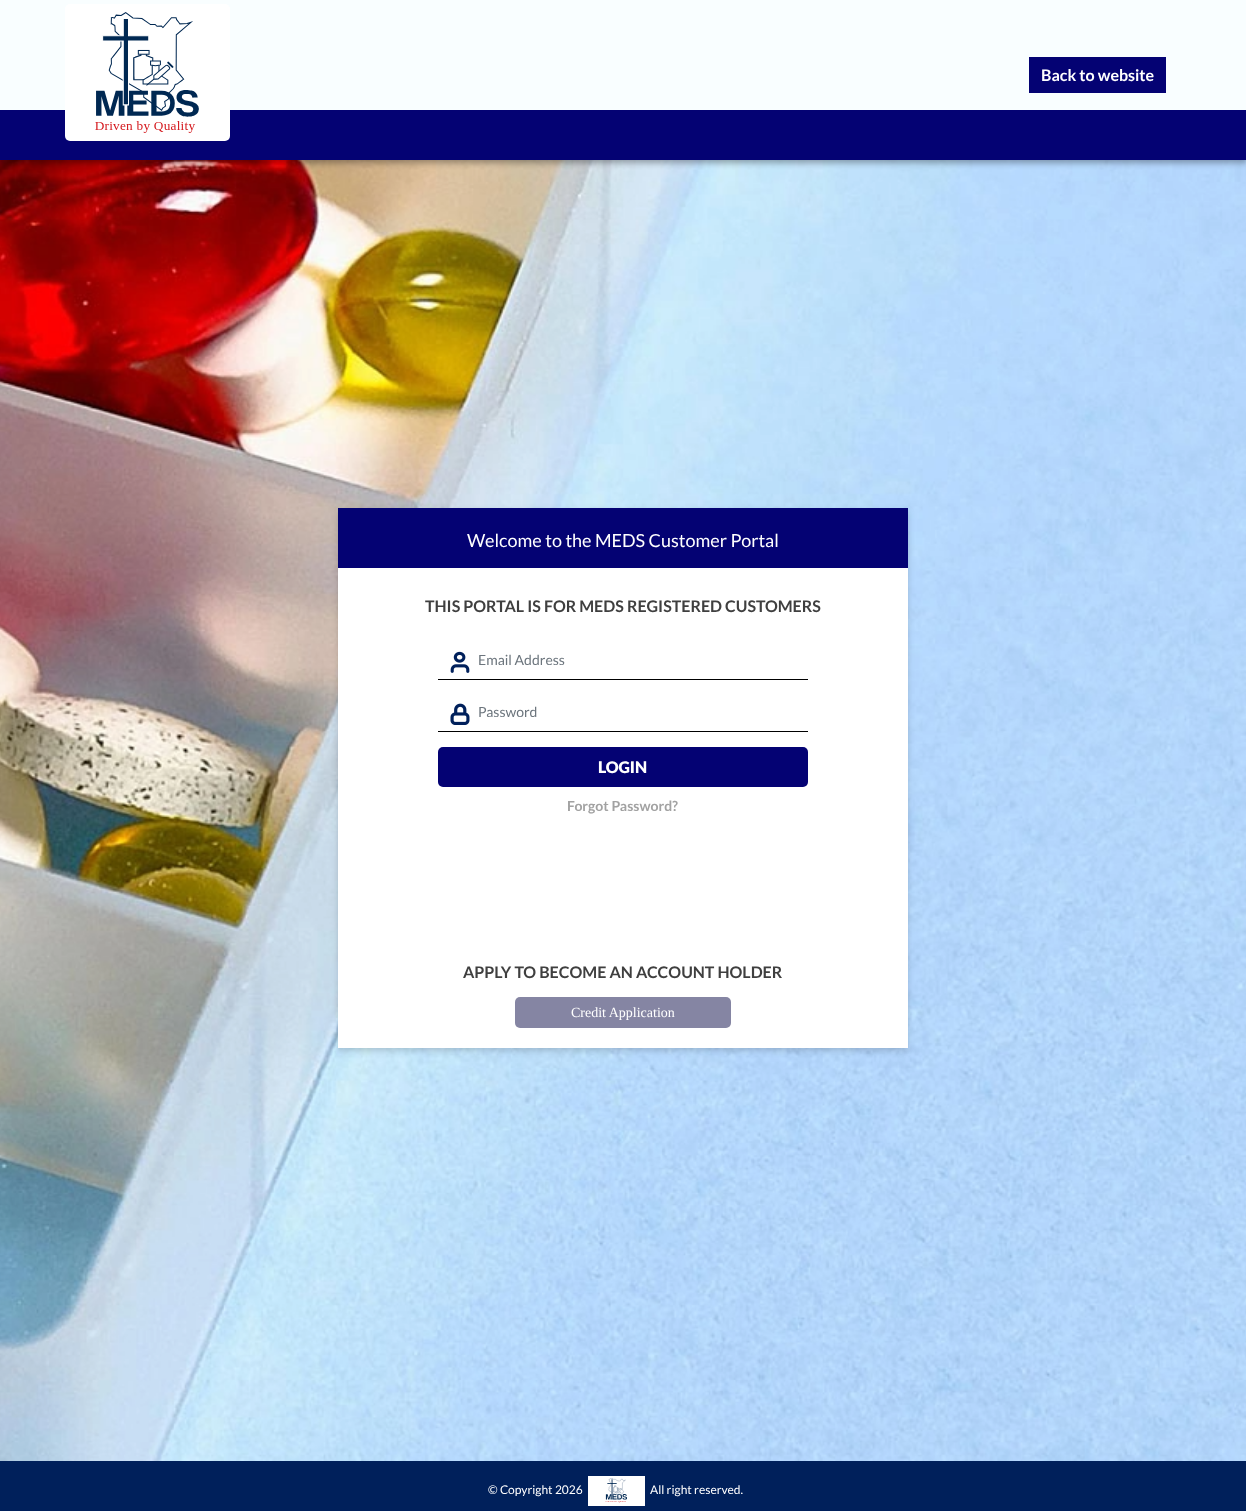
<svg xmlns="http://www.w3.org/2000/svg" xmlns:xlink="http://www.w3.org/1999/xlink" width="1246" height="1511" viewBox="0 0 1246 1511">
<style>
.cls-1{font:bold 16px Lato;fill:#ffffff}
.cls-2{font:18px Lato;fill:#ffffff}
.cls-3{font:bold 16px Lato;fill:#3f3f3f}
.cls-4{font:14px Lato;fill:#6c757d}
.cls-5{font:900 16px Lato;fill:#ffffff}
.cls-6{font:bold 14px Lato;fill:#a2a2a2}
.cls-7{font:14px Liberation Serif;fill:#ffffff}
.cls-8{font:12px Lato;fill:#ffffff}
</style>
<rect width="100%" height="100%" fill="#ffffff"/>
<image xlink:href="image1.png" x="0" y="160" width="1246" height="1301"/>
<rect fill="#000000" fill-opacity="0.32" filter="blur(3px)" x="-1" y="1" width="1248" height="162"/>
<rect fill="#f9feff" x="0" y="0" width="1246" height="110"/>
<rect fill="#040273" x="0" y="110" width="1246" height="50"/>
<rect fill="#ffffff" x="65" y="4" width="165" height="137" rx="5"/>
<image xlink:href="image0.png" x="95" y="12" width="104" height="121"/>
<rect fill="#040273" x="1029" y="57" width="137" height="36"/>
<rect fill="#000000" fill-opacity="0.16" filter="blur(3px)" x="338" y="511" width="570" height="540"/>
<rect fill="#ffffff" x="338" y="568" width="570" height="480"/>
<rect fill="#040273" x="338" y="508" width="570" height="60"/>
<image xlink:href="image2.png" x="450" y="651" width="20" height="22"/>
<rect fill="#000000" x="438" y="679" width="370" height="1"/>
<image xlink:href="image3.png" x="450" y="703" width="20" height="22"/>
<rect fill="#000000" x="438" y="731" width="370" height="1"/>
<rect fill="#040273" x="438" y="747" width="370" height="40" rx="5"/>
<rect fill="#8585a3" x="515" y="997" width="216" height="31" rx="5"/>
<rect fill="#00205b" x="0" y="1461" width="1246" height="50"/>
<rect fill="#ffffff" x="588" y="1476" width="57" height="30"/>
<image xlink:href="image4.png" x="605" y="1478" width="22" height="25"/>
<text class="cls-1" x="1041" y="81">Back to website</text>
<text class="cls-2" x="467" y="547">Welcome to the MEDS Customer Portal</text>
<text class="cls-3" x="425" y="612">THIS PORTAL IS FOR MEDS REGISTERED CUSTOMERS</text>
<text class="cls-4" x="478" y="665">Email Address</text>
<text class="cls-4" x="478" y="717">Password</text>
<text class="cls-5" x="598" y="773">LOGIN</text>
<text class="cls-6" x="567" y="811">Forgot Password?</text>
<text class="cls-3" x="463" y="978">APPLY TO BECOME AN ACCOUNT HOLDER</text>
<text class="cls-7" x="571" y="1017">Credit Application</text>
<text class="cls-8" x="488" y="1494">© Copyright 2026</text>
<text class="cls-8" x="650" y="1494">All right reserved.</text>
</svg>
